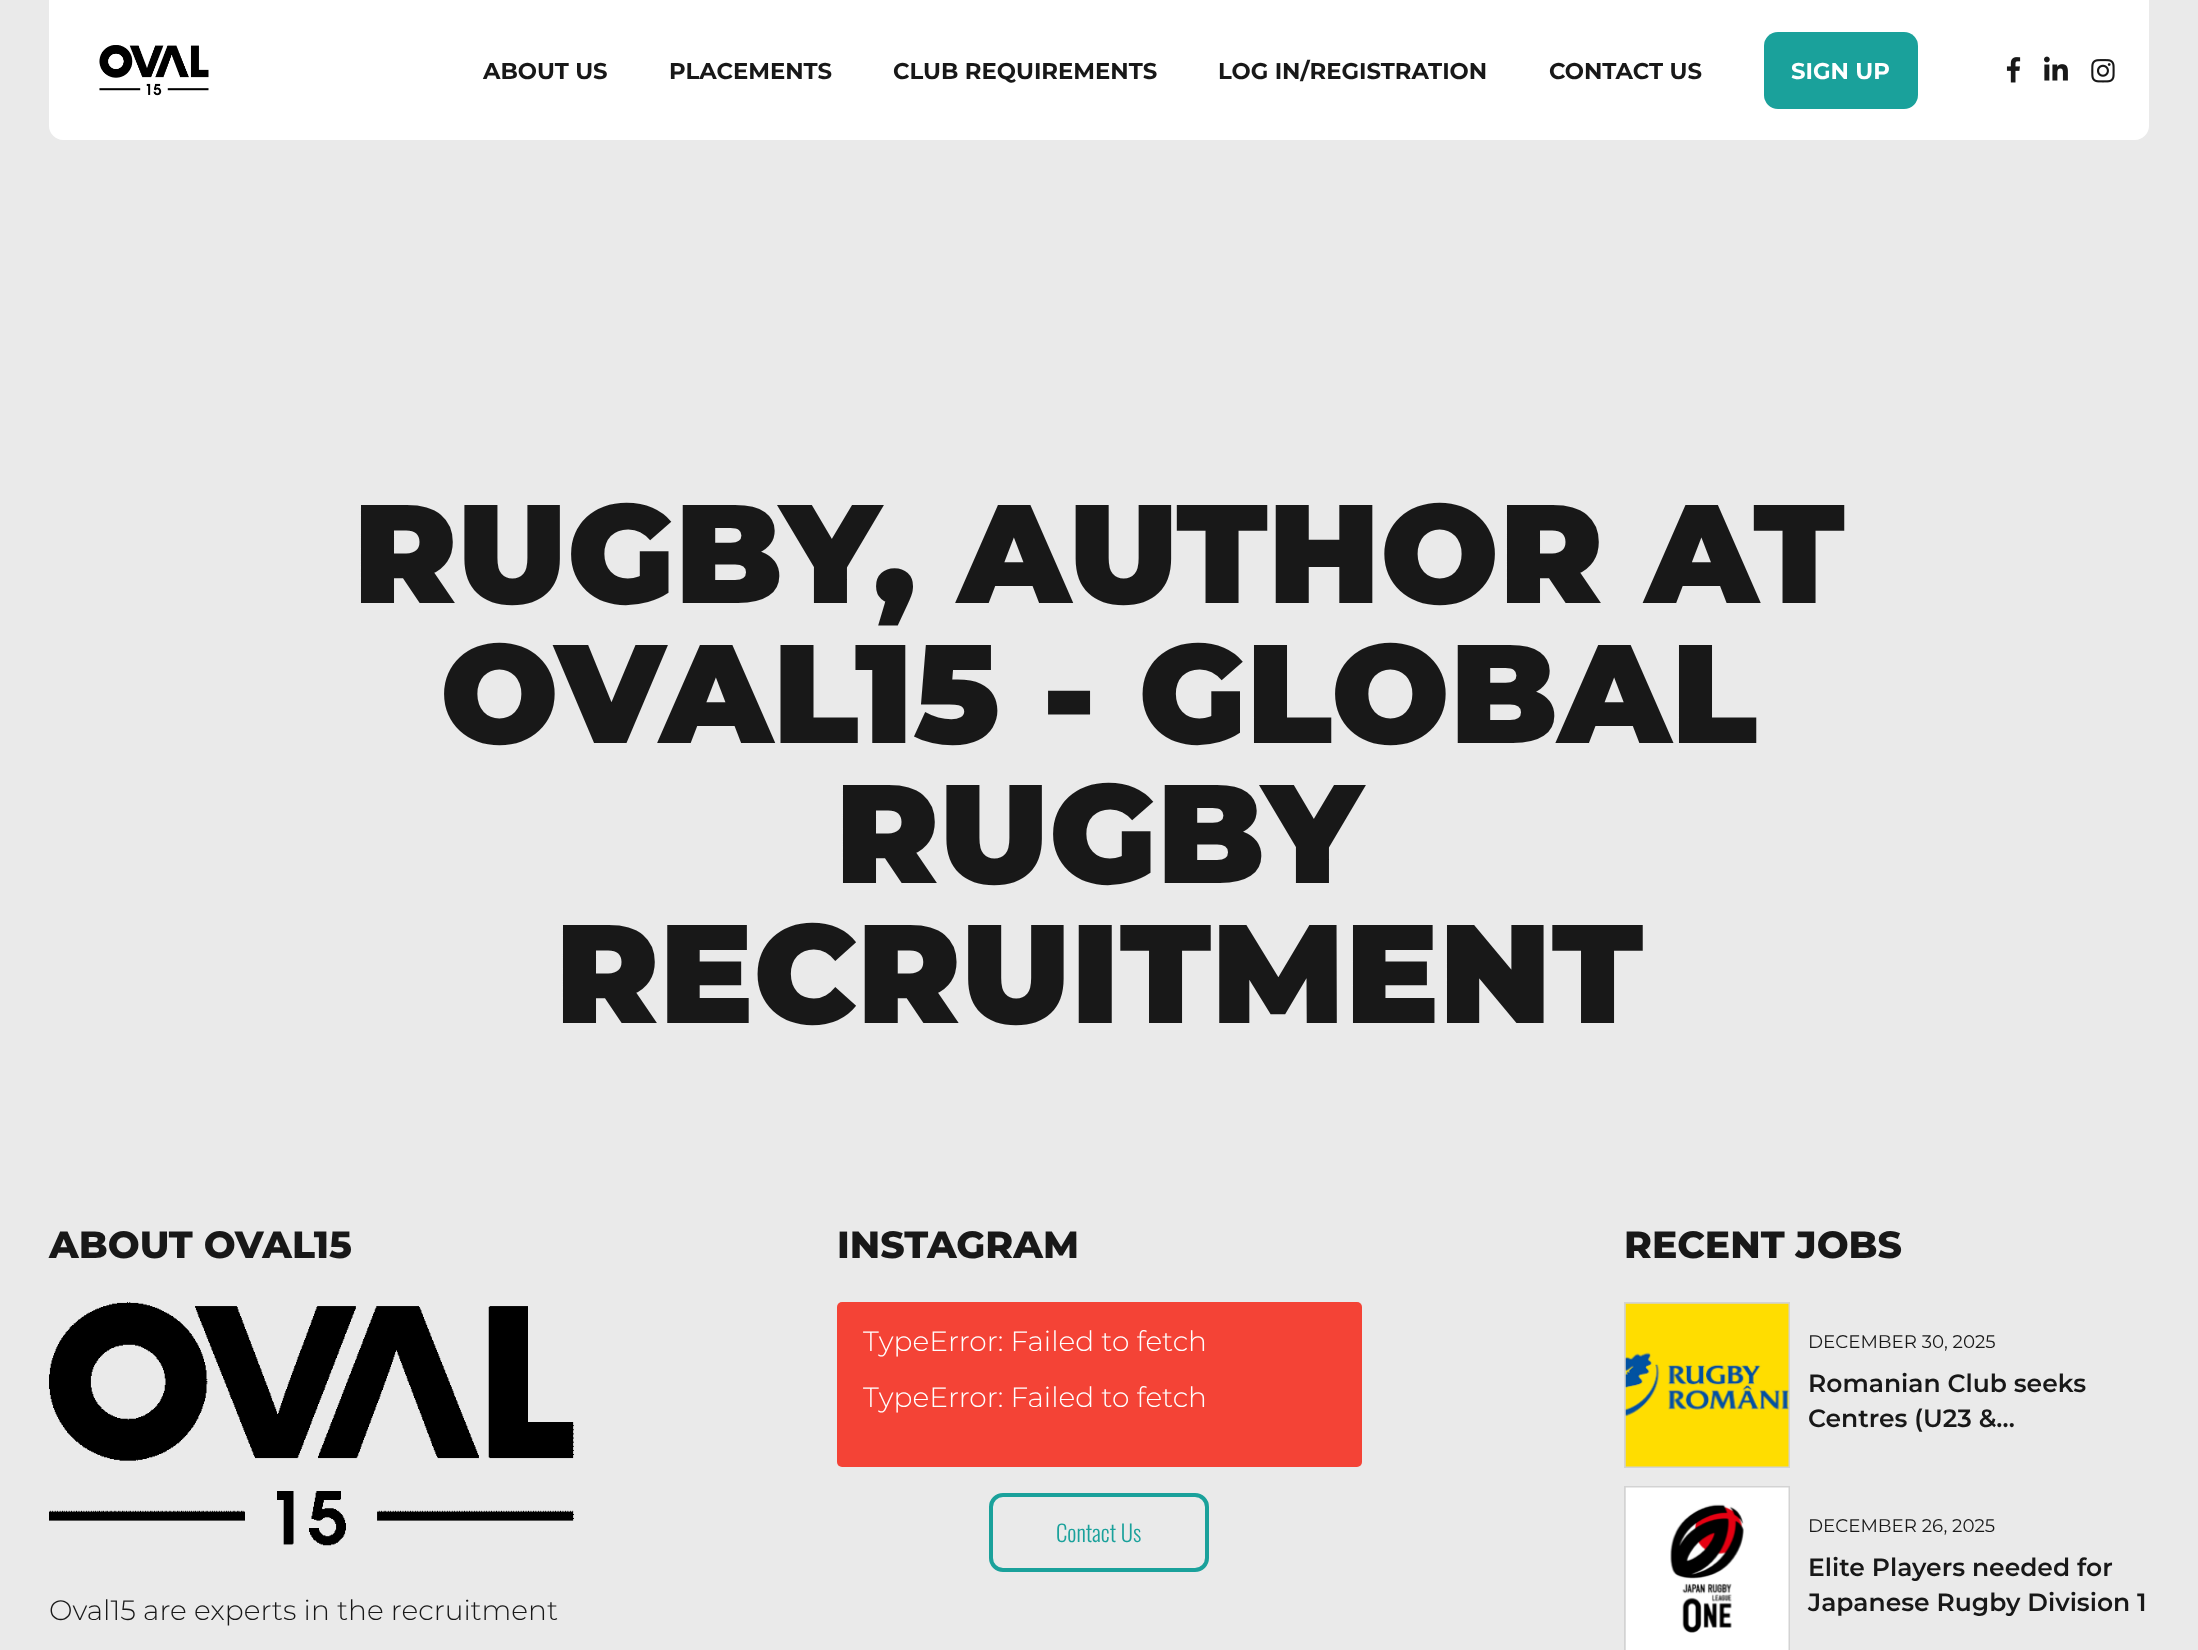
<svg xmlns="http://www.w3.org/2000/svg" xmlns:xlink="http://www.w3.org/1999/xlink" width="2198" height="1650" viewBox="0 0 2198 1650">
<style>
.cls-1{font:bold 22.75px Montserrat;fill:#181818}
.cls-2{font:bold 22.75px Montserrat;fill:#ffffff}
.cls-3{font:900 140px Montserrat;fill:#181818}
.cls-4{font:800 37.75px Montserrat;fill:#181818}
.cls-5{font:300 28px Montserrat;fill:#181818}
.cls-6{font:300 28px Montserrat;fill:#ffffff}
.cls-7{font:300 22.75px Oswald;fill:#1aa19b}
.cls-8{font:18.25px Montserrat;fill:#181818}
.cls-9{font:600 25px Montserrat;fill:#181818}
</style>
<rect width="100%" height="100%" fill="#eaeaea"/>
<path fill="#ffffff" d="M49 0H2149V126C2149 133.5 2142.5 140 2135 140H63C55.5 140 49 133.5 49 126Z"/>
<image xlink:href="image0.png" x="99" y="45" width="110" height="51"/>
<rect fill="#1aa19b" x="1764" y="32" width="154" height="77" rx="14"/>
<image xlink:href="image1.png" x="2006" y="57" width="15" height="26"/>
<image xlink:href="image2.png" x="2044" y="56" width="24" height="25"/>
<image xlink:href="image3.png" x="2091" y="59" width="24" height="24"/>
<image xlink:href="image4.png" x="49" y="1302" width="525" height="244"/>
<rect fill="#f44336" x="837" y="1302" width="525" height="165" rx="5"/>
<rect fill="none" stroke="#1aa19b" stroke-width="4" x="991" y="1495" width="216" height="75" rx="12"/>
<rect fill="none" stroke="#d3d3d3" stroke-width="2" x="1625" y="1303" width="164" height="164"/>
<image xlink:href="image5.png" x="1625" y="1303" width="164" height="164"/>
<rect fill="none" stroke="#d3d3d3" stroke-width="2" x="1625" y="1487" width="164" height="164"/>
<image xlink:href="image6.png" x="1625" y="1487" width="164" height="163"/>
<text class="cls-1" x="483" y="79">ABOUT US</text>
<text class="cls-1" x="669" y="79">PLACEMENTS</text>
<text class="cls-1" x="893" y="79">CLUB REQUIREMENTS</text>
<text class="cls-1" x="1218" y="79">LOG IN/REGISTRATION</text>
<text class="cls-1" x="1549" y="79">CONTACT US</text>
<text class="cls-2" x="1791" y="79">SIGN UP</text>
<text class="cls-3" x="353" y="603">RUGBY, AUTHOR AT</text>
<text class="cls-3" x="440" y="743">OVAL15 - GLOBAL</text>
<text class="cls-3" x="835" y="883">RUGBY</text>
<text class="cls-3" x="555" y="1023">RECRUITMENT</text>
<text class="cls-4" x="49" y="1258">ABOUT OVAL15</text>
<text class="cls-5" x="49" y="1620">Oval15 are experts in the recruitment</text>
<text class="cls-4" x="837" y="1258">INSTAGRAM</text>
<text class="cls-6" x="863" y="1351">TypeError: Failed to fetch</text>
<text class="cls-6" x="863" y="1407">TypeError: Failed to fetch</text>
<text class="cls-7" x="1056" y="1542">Contact Us</text>
<text class="cls-4" x="1624" y="1258">RECENT JOBS</text>
<text class="cls-8" x="1808" y="1348">DECEMBER 30, 2025</text>
<text class="cls-9"><tspan x="1808" y="1392">Romanian Club seeks</tspan><tspan x="1808" y="1427">Centres (U23 &amp;…</tspan></text>
<text class="cls-8" x="1808" y="1532">DECEMBER 26, 2025</text>
<text class="cls-9"><tspan x="1808" y="1576">Elite Players needed for</tspan><tspan x="1808" y="1611">Japanese Rugby Division 1</tspan></text>
</svg>
